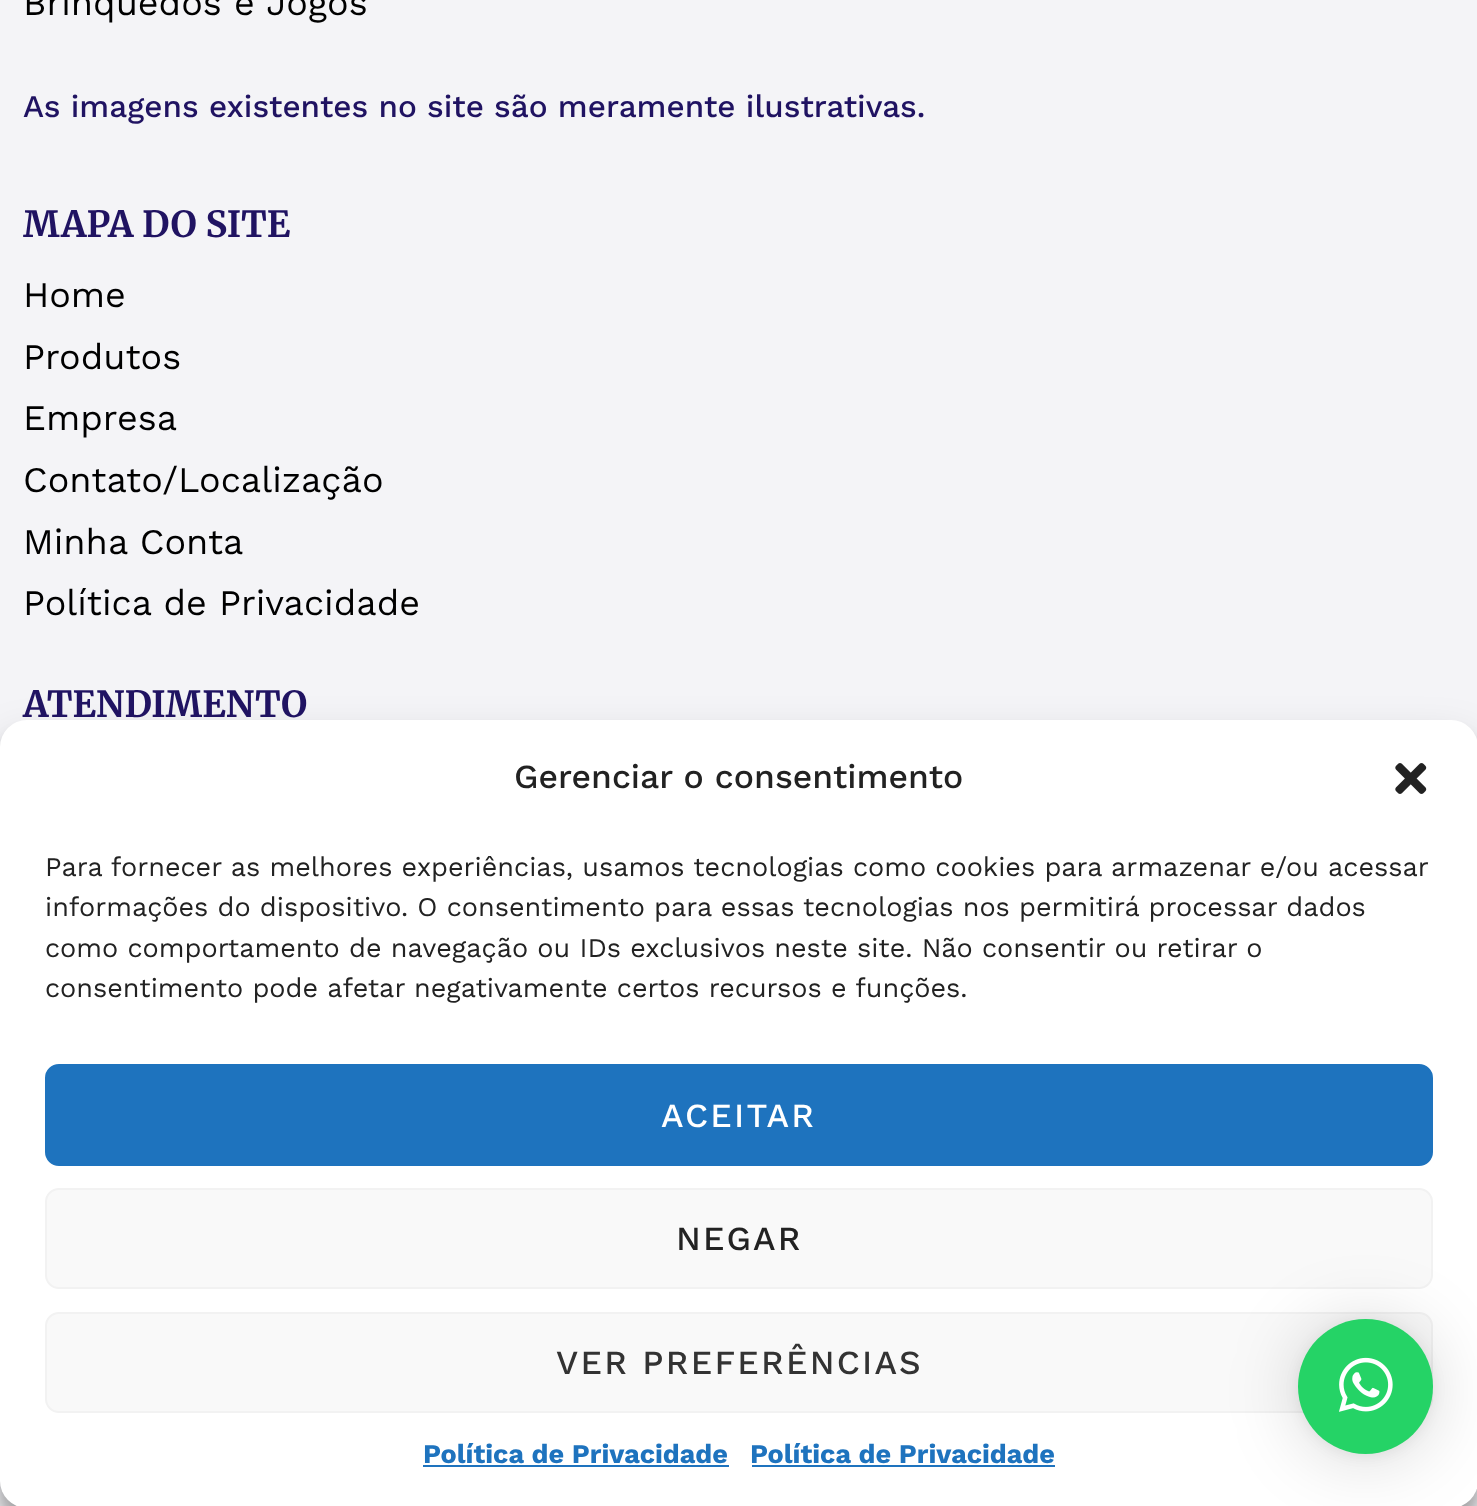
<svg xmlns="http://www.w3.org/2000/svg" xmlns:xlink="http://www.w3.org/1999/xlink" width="1477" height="1506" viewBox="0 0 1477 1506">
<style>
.cls-1{font:36px Work Sans;fill:#000000}
.cls-2{font:500 31.5px Work Sans;fill:#201362}
.cls-3{font:bold 36px Merriweather;fill:#201362}
.cls-4{font:500 33.75px Work Sans;fill:#222222}
.cls-5{font:27px Work Sans;fill:#222222}
.cls-6{font:500 33.75px Work Sans;letter-spacing:2.25px;fill:#ffffff}
.cls-7{font:500 33.75px Work Sans;letter-spacing:2.25px;fill:#222222}
.cls-8{font:500 33.75px Work Sans;letter-spacing:2.25px;fill:#333333}
.cls-9{font:bold 27px Work Sans;fill:#1e73be}
</style>
<rect width="100%" height="100%" fill="#f4f4f7"/>
<rect fill="#000000" fill-opacity="0.23" filter="blur(7px)" x="0" y="734" width="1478" height="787" rx="27"/>
<rect fill="#000000" fill-opacity="0.19" filter="blur(22.5px)" x="0" y="743" width="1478" height="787" rx="27"/>
<rect fill="#ffffff" x="0" y="720" width="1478" height="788" rx="27"/>
<image xlink:href="image0.png" x="1395" y="763" width="32" height="31"/>
<rect fill="#1e73be" stroke="#1e73be" stroke-width="2" x="46" y="1065" width="1386" height="100" rx="13"/>
<rect fill="#f9f9f9" stroke="#f2f2f2" stroke-width="2" x="46" y="1189" width="1386" height="99" rx="13"/>
<rect fill="#f9f9f9" stroke="#f2f2f2" stroke-width="2" x="46" y="1313" width="1386" height="99" rx="13"/>
<rect fill="#1e73be" x="423" y="1465" width="306" height="2"/>
<rect fill="#1e73be" x="752" y="1465" width="303" height="2"/>
<rect fill="#000000" fill-opacity="0.16" filter="blur(36px)" x="1298" y="1323" width="135" height="135" rx="67.5"/>
<rect fill="#000000" fill-opacity="0.06" filter="blur(7px)" x="1298" y="1321" width="135" height="135" rx="67.5"/>
<circle fill="#25d366" cx="1365.5" cy="1386.5" r="67.5"/>
<image xlink:href="image1.png" x="1339" y="1357" width="54" height="55"/>
<text class="cls-1" x="23" y="15">Brinquedos e Jogos</text>
<text class="cls-2" x="23" y="117">As imagens existentes no site são meramente ilustrativas.</text>
<text class="cls-3" x="23" y="237">MAPA DO SITE</text>
<text class="cls-1"><tspan x="23" y="307">Home</tspan><tspan x="23" y="369">Produtos</tspan><tspan x="23" y="430">Empresa</tspan><tspan x="23" y="492">Contato/Localização</tspan><tspan x="23" y="554">Minha Conta</tspan><tspan x="23" y="615">Política de Privacidade</tspan></text>
<text class="cls-3" x="23" y="717">ATENDIMENTO</text>
<text class="cls-4" x="514" y="788">Gerenciar o consentimento</text>
<text class="cls-5"><tspan x="45" y="876">Para fornecer as melhores experiências, usamos tecnologias como cookies para armazenar e/ou acessar</tspan><tspan x="45" y="916">informações do dispositivo. O consentimento para essas tecnologias nos permitirá processar dados</tspan><tspan x="45" y="957">como comportamento de navegação ou IDs exclusivos neste site. Não consentir ou retirar o</tspan><tspan x="45" y="997">consentimento pode afetar negativamente certos recursos e funções.</tspan></text>
<text class="cls-6" x="661" y="1127">ACEITAR</text>
<text class="cls-7" x="676" y="1250">NEGAR</text>
<text class="cls-8" x="556" y="1374">VER PREFERÊNCIAS</text>
<text class="cls-9" x="423" y="1463">Política de Privacidade</text>
<text class="cls-9" x="750" y="1463">Política de Privacidade</text>
</svg>
